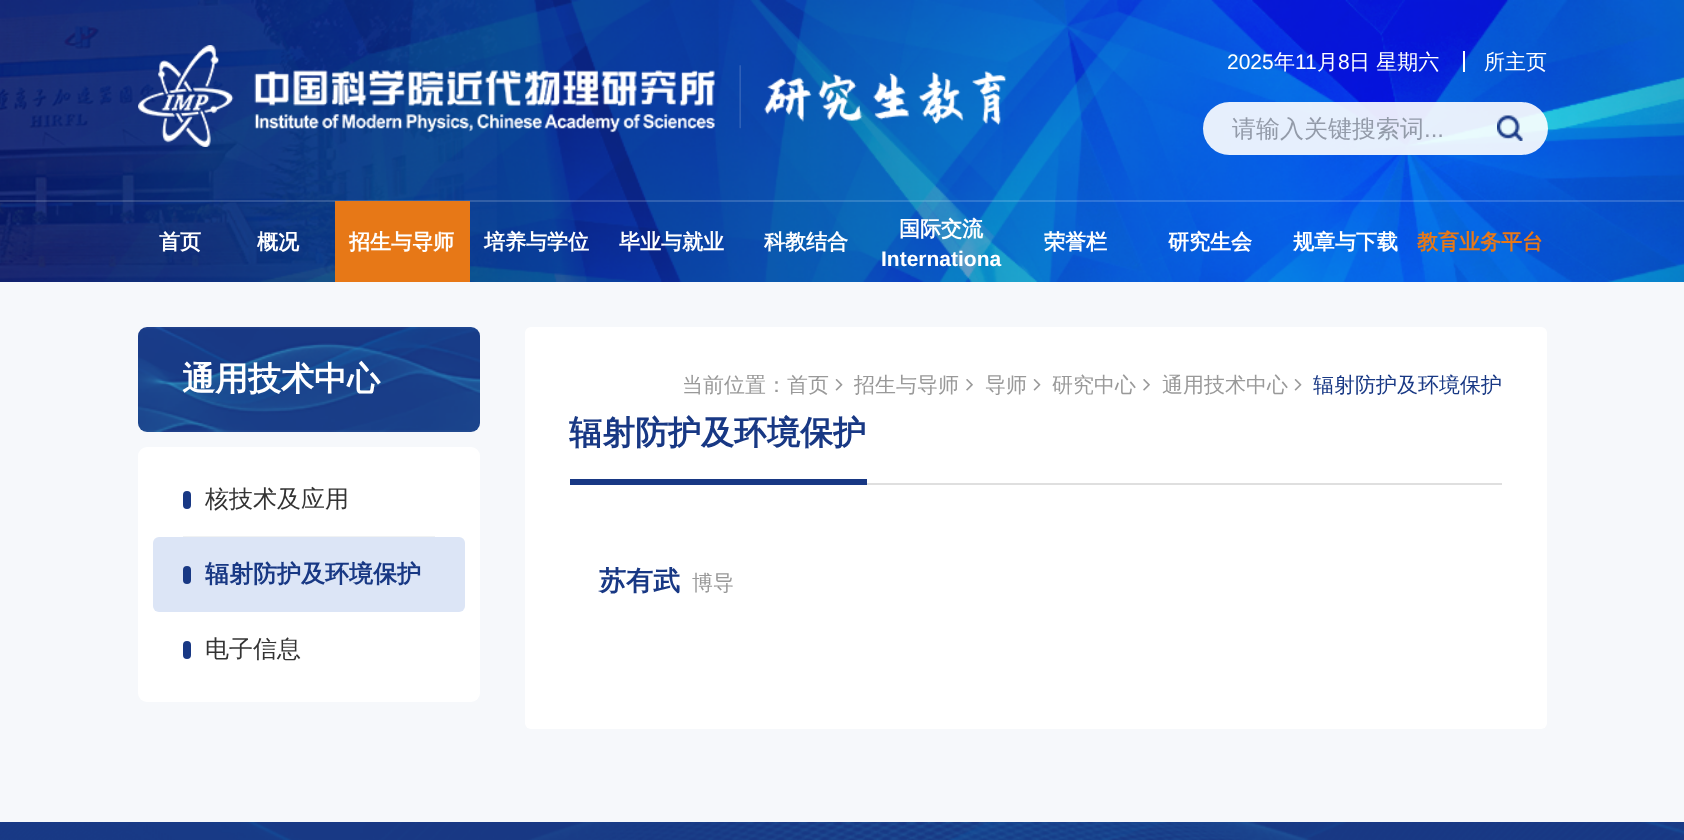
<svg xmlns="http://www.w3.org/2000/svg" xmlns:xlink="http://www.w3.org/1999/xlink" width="1684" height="840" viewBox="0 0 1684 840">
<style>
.cls-1{font:21px Liberation Sans;fill:#ffffff}
.cls-2{font:500 21px WenQuanYi Zen Hei;fill:#ffffff}
.cls-3{font:500 24px WenQuanYi Zen Hei;fill:#939ba9}
.cls-4{font:24px Liberation Sans;fill:#939ba9}
.cls-5{font:bold 21px WenQuanYi Zen Hei;fill:#ffffff}
.cls-6{font:bold 21px Liberation Sans;fill:#ffffff}
.cls-7{font:bold 21px WenQuanYi Zen Hei;fill:#e77817}
.cls-8{font:bold 33px WenQuanYi Zen Hei;fill:#ffffff}
.cls-9{font:500 24px WenQuanYi Zen Hei;fill:#333333}
.cls-10{font:bold 24px WenQuanYi Zen Hei;fill:#183884}
.cls-11{font:500 21px WenQuanYi Zen Hei;fill:#999999}
.cls-12{font:500 21px WenQuanYi Zen Hei;fill:#183884}
.cls-13{font:bold 33px WenQuanYi Zen Hei;fill:#183884}
.cls-14{font:bold 27px WenQuanYi Zen Hei;fill:#183884}
</style>
<rect width="100%" height="100%" fill="#ffffff"/>
<image xlink:href="image0.png" x="0" y="0" width="1684" height="282"/>
<image xlink:href="image1.png" x="138" y="45" width="869" height="102"/>
<rect fill="#ffffff" x="1463" y="51" width="2" height="21"/>
<rect fill="#ffffff" fill-opacity="0.9" x="1203" y="102" width="345" height="53" rx="26.5"/>
<image xlink:href="image2.png" x="1497" y="115" width="26" height="26"/>
<rect fill="#ffffff" fill-opacity="0.16" x="0" y="200" width="1684" height="2"/>
<rect fill="#e77817" x="335" y="201" width="135" height="81"/>
<rect fill="#f6f8fb" x="0" y="282" width="1684" height="540"/>
<image xlink:href="image3.png" x="138" y="327" width="342" height="105"/>
<rect fill="#ffffff" x="138" y="447" width="342" height="255" rx="9"/>
<rect fill="#183884" x="183" y="491" width="8" height="18" rx="4"/>
<rect fill="#f0f2f3" x="183" y="536" width="252" height="1"/>
<rect fill="#dce5f6" x="153" y="537" width="312" height="75" rx="6"/>
<rect fill="#183884" x="183" y="566" width="8" height="18" rx="4"/>
<rect fill="#183884" x="183" y="641" width="8" height="18" rx="4"/>
<rect fill="#ffffff" x="525" y="327" width="1022" height="402" rx="6"/>
<rect fill="#dfdfdf" x="867" y="483" width="635" height="2"/>
<image xlink:href="image4.png" x="835" y="379" width="8" height="12"/>
<image xlink:href="image5.png" x="966" y="379" width="7" height="12"/>
<image xlink:href="image4.png" x="1033" y="379" width="8" height="12"/>
<image xlink:href="image5.png" x="1143" y="379" width="7" height="12"/>
<image xlink:href="image4.png" x="1294" y="379" width="8" height="12"/>
<rect fill="#183884" x="570" y="479" width="297" height="6"/>
<image xlink:href="image6.png" x="0" y="822" width="1684" height="18"/>
<text class="cls-1" x="1227" y="69">2025</text>
<text class="cls-2" x="1274" y="69">年</text>
<text class="cls-1" x="1295" y="69">11</text>
<text class="cls-2" x="1317" y="69">月</text>
<text class="cls-1" x="1338" y="69">8</text>
<text class="cls-2" x="1349" y="69">日 星期六</text>
<text class="cls-2" x="1484" y="69">所主页</text>
<text class="cls-3" x="1232" y="137">请输入关键搜索词</text>
<text class="cls-4" x="1424" y="137">...</text>
<text class="cls-5" x="159" y="249">首页</text>
<text class="cls-5" x="257" y="249">概况</text>
<text class="cls-5" x="349" y="249">招生与导师</text>
<text class="cls-5" x="484" y="249">培养与学位</text>
<text class="cls-5" x="619" y="249">毕业与就业</text>
<text class="cls-5" x="764" y="249">科教结合</text>
<text class="cls-5" x="899" y="236">国际交流</text>
<text class="cls-6" x="881" y="266">Internationa</text>
<text class="cls-5" x="1044" y="249">荣誉栏</text>
<text class="cls-5" x="1168" y="249">研究生会</text>
<text class="cls-5" x="1293" y="249">规章与下载</text>
<text class="cls-7" x="1417" y="249">教育业务平台</text>
<text class="cls-8" x="182" y="390">通用技术中心</text>
<text class="cls-9" x="205" y="507">核技术及应用</text>
<text class="cls-10" x="205" y="582">辐射防护及环境保护</text>
<text class="cls-9" x="205" y="657">电子信息</text>
<text class="cls-11" x="682" y="392">当前位置：首页</text>
<text class="cls-11" x="854" y="392">招生与导师</text>
<text class="cls-11" x="985" y="392">导师</text>
<text class="cls-11" x="1052" y="392">研究中心</text>
<text class="cls-11" x="1162" y="392">通用技术中心</text>
<text class="cls-12" x="1313" y="392">辐射防护及环境保护</text>
<text class="cls-13" x="569" y="444">辐射防护及环境保护</text>
<text class="cls-14" x="599" y="590">苏有武</text>
<text class="cls-11" x="692" y="590">博导</text>
</svg>
